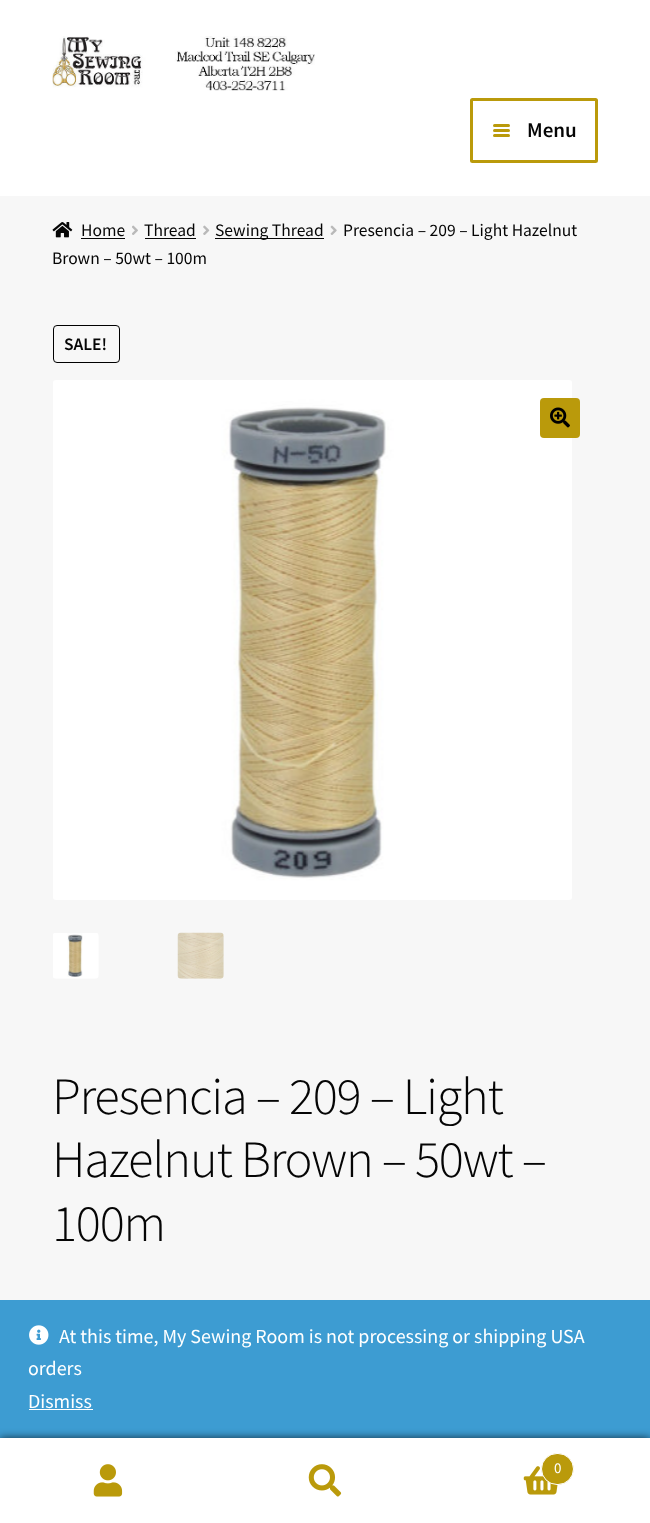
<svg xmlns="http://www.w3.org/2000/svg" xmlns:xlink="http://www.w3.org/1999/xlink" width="650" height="1523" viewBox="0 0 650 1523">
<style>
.cls-1{font:600 21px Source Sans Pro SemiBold;fill:#050505}
.cls-2{font:17.5px Source Sans Pro;fill:#050505}
.cls-3{font:600 17.5px Source Sans Pro SemiBold;fill:#050505}
.cls-4{font:300 52.4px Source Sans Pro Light;letter-spacing:-1.25px;fill:#050505}
.cls-5{font:15px Source Sans Pro;fill:#ffffff}
.cls-6{font:20px Source Sans Pro;fill:#ffffff}
</style>
<rect width="100%" height="100%" fill="#f7f7f7"/>
<rect fill="#ffffff" x="0" y="0" width="650" height="196"/>
<image xlink:href="image0.png" x="52" y="36" width="263" height="55"/>
<rect fill="none" stroke="#ba9a0b" stroke-width="3" x="471.5" y="99.5" width="125" height="62" rx="1"/>
<rect fill="#ba9a0b" x="493" y="124" width="17" height="3" rx="1.5"/>
<rect fill="#ba9a0b" x="493" y="129" width="17" height="3" rx="1.5"/>
<rect fill="#ba9a0b" x="493" y="134" width="17" height="3" rx="1.5"/>
<image xlink:href="image1.png" x="52" y="222" width="21" height="16"/>
<rect fill="#050505" x="81" y="238" width="44" height="1"/>
<image xlink:href="image2.png" x="132" y="225" width="6" height="10"/>
<rect fill="#050505" x="145" y="238" width="51" height="1"/>
<image xlink:href="image3.png" x="203" y="225" width="7" height="10"/>
<rect fill="#050505" x="215" y="238" width="109" height="1"/>
<image xlink:href="image4.png" x="330" y="225" width="7" height="10"/>
<rect fill="none" stroke="#000000" x="53.5" y="325.5" width="66" height="37" rx="3.5"/>
<image xlink:href="image5.png" x="53" y="380" width="519" height="520"/>
<rect fill="#ba9a0b" x="540" y="398" width="40" height="40" rx="4"/>
<image xlink:href="image6.png" x="550" y="407" width="20" height="21"/>
<image xlink:href="image7.png" x="53" y="933" width="46" height="46"/>
<image xlink:href="image8.png" x="177" y="932" width="47" height="47"/>
<rect fill="#3d9cd2" x="0" y="1300" width="650" height="138"/>
<rect fill="#000000" fill-opacity="0.7" filter="blur(4px)" x="0" y="1438" width="650" height="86"/>
<rect fill="#ffffff" x="0" y="1438" width="650" height="1"/>
<rect fill="#ffffff" x="0" y="1439" width="650" height="84"/>
<image xlink:href="image9.png" x="93" y="1464" width="30" height="33"/>
<image xlink:href="image10.png" x="308" y="1464" width="34" height="33"/>
<image xlink:href="image11.png" x="523" y="1466" width="35" height="29"/>
<rect fill="#ba9a0b" stroke="#ffffff" x="541.5" y="1453.5" width="32" height="31" rx="15.5"/>
<image xlink:href="image12.png" x="29" y="1325" width="20" height="20"/>
<rect fill="#ffffff" x="29" y="1409" width="64" height="1"/>
<text class="cls-1" x="527" y="137">Menu</text>
<text class="cls-2" x="81" y="236">Home</text>
<text class="cls-2" x="144" y="236">Thread</text>
<text class="cls-2" x="215" y="236">Sewing Thread</text>
<text class="cls-2" x="343" y="236">Presencia – 209 – Light Hazelnut</text>
<text class="cls-2" x="52" y="264">Brown – 50wt – 100m</text>
<text class="cls-3" x="64" y="350">SALE!</text>
<text class="cls-4"><tspan x="52" y="1114">Presencia – 209 – Light</tspan><tspan x="52" y="1177">Hazelnut Brown – 50wt –</tspan><tspan x="52" y="1241">100m</tspan></text>
<text class="cls-5" x="554" y="1473">0</text>
<text class="cls-6" x="59" y="1343">At this time, My Sewing Room is not processing or shipping USA</text>
<text class="cls-6"><tspan x="28" y="1375">orders</tspan><tspan x="28" y="1408">Dismiss</tspan></text>
</svg>
